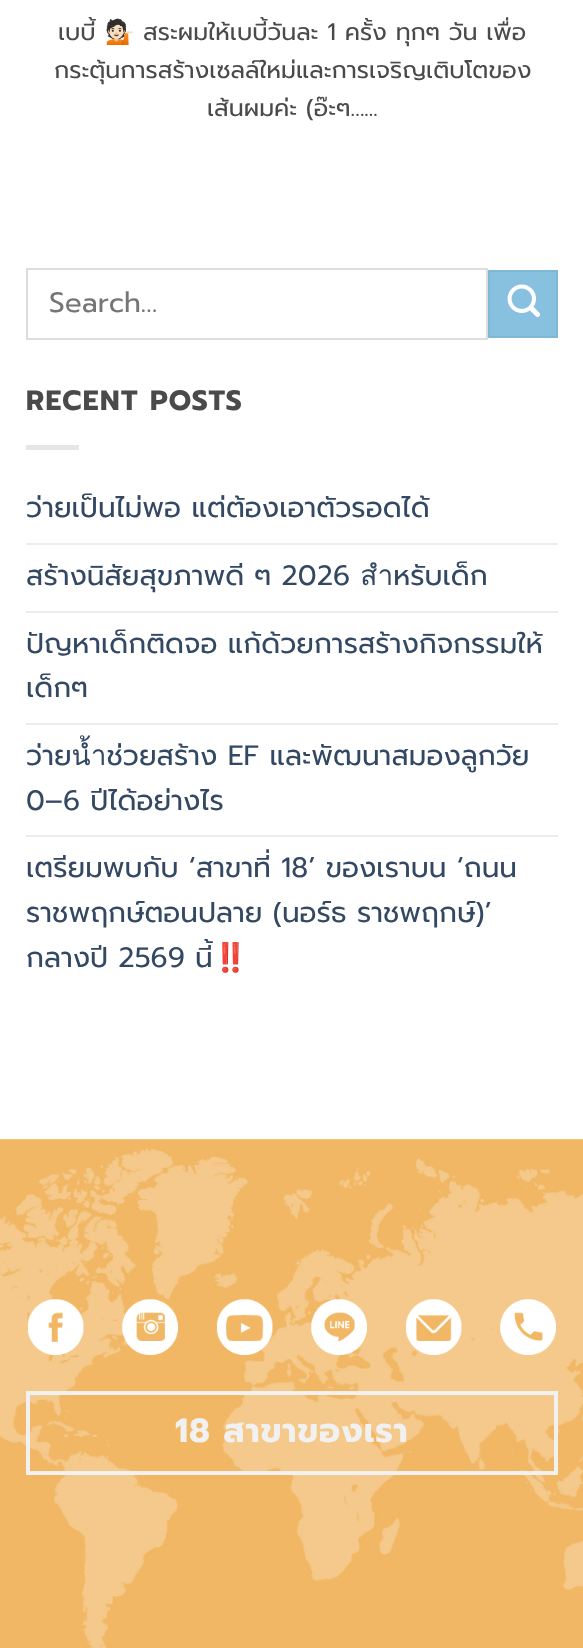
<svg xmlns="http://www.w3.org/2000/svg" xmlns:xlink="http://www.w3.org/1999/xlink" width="583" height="1648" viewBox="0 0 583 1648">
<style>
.cls-1{font:23.8px Prompt;fill:#4a4a4a}
.cls-2{font:23.8px Noto Color Emoji;fill:#4a4a4a}
.cls-3{font:28px Prompt;fill:#757575}
.cls-4{font:bold 28px Prompt;letter-spacing:1.4px;fill:#4a4a4a}
.cls-5{font:28px Prompt;fill:#334862}
.cls-6{font:28px Noto Color Emoji;fill:#334862}
.cls-7{font:bold 33.5px Prompt;letter-spacing:1px;fill:#f1f1f1}
</style>
<rect width="100%" height="100%" fill="#ffffff"/>
<rect fill="#f5c98b" x="0" y="1139" width="583" height="1"/>
<rect fill="none" stroke="#dddddd" stroke-width="2" x="27" y="269" width="460" height="70"/>
<rect fill="#87c1df" stroke="#80b7d4" stroke-width="2" x="489" y="271" width="68" height="66"/>
<image xlink:href="image0.png" x="507" y="284" width="34" height="33"/>
<rect fill="#e6e6e6" x="26" y="445" width="53" height="5"/>
<rect fill="#ececec" x="26" y="543" width="532" height="2"/>
<rect fill="#ececec" x="26" y="611" width="532" height="2"/>
<rect fill="#ececec" x="26" y="723" width="532" height="2"/>
<rect fill="#ececec" x="26" y="835" width="532" height="2"/>
<image xlink:href="image1.png" x="0" y="1139" width="583" height="509"/>
<image xlink:href="image2.png" x="27" y="1299" width="57" height="56"/>
<image xlink:href="image3.png" x="122" y="1299" width="56" height="56"/>
<image xlink:href="image4.png" x="216" y="1299" width="57" height="56"/>
<image xlink:href="image5.png" x="311" y="1299" width="56" height="56"/>
<image xlink:href="image6.png" x="405" y="1299" width="57" height="56"/>
<image xlink:href="image7.png" x="500" y="1299" width="56" height="56"/>
<rect fill="none" stroke="#f1f1f1" stroke-width="4" x="28" y="1393" width="528" height="80"/>
<text class="cls-1" x="58" y="40">เบบี้</text>
<text class="cls-2" x="105" y="40">💁🏻</text>
<text class="cls-1" x="143" y="40">สระผมให้เบบี้วันละ 1 ครั้ง ทุกๆ วัน เพื่อ</text>
<text class="cls-1" x="54" y="78">กระตุ้นการสร้างเซลล์ใหม่และการเจริญเติบโตของ</text>
<text class="cls-1" x="207" y="116">เส้นผมค่ะ (อ๊ะๆ…...</text>
<text class="cls-3" x="49" y="312">Search…</text>
<text class="cls-4" x="26" y="410">RECENT POSTS</text>
<text class="cls-5" x="26" y="517">ว่ายเป็นไม่พอ แต่ต้องเอาตัวรอดได้</text>
<text class="cls-5" x="26" y="585">สร้างนิสัยสุขภาพดี ๆ 2026 สำหรับเด็ก</text>
<text class="cls-5"><tspan x="26" y="653">ปัญหาเด็กติดจอ แก้ด้วยการสร้างกิจกรรมให้</tspan><tspan x="26" y="697">เด็กๆ</tspan></text>
<text class="cls-5"><tspan x="26" y="765">ว่ายน้ำช่วยสร้าง EF และพัฒนาสมองลูกวัย</tspan><tspan x="26" y="810">0–6 ปีได้อย่างไร</tspan></text>
<text class="cls-5"><tspan x="26" y="877">เตรียมพบกับ ‘สาขาที่ 18’ ของเราบน ‘ถนน</tspan><tspan x="26" y="922">ราชพฤกษ์ตอนปลาย (นอร์ธ ราชพฤกษ์)’</tspan><tspan x="26" y="967">กลางปี 2569 นี้</tspan></text>
<text class="cls-6" x="213" y="967">‼️</text>
<text class="cls-7" x="175" y="1442">18 สาขาของเรา</text>
</svg>
